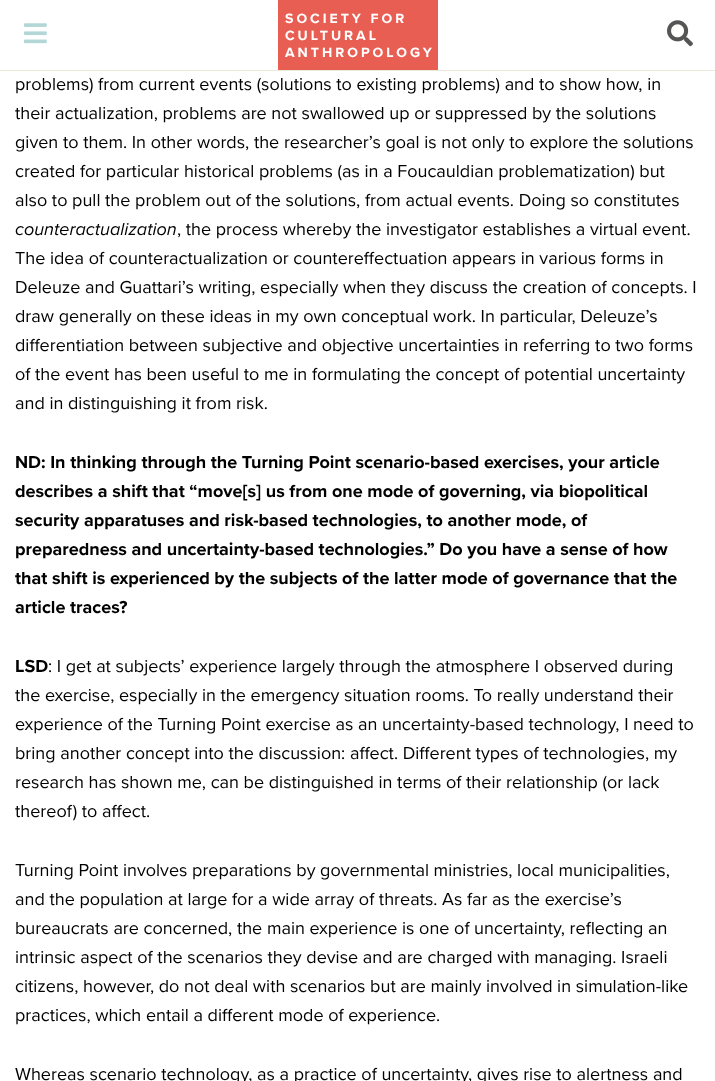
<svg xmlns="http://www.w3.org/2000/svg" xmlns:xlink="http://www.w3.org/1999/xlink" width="715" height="1081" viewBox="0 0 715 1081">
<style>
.cls-1{font:bold 14px Proxima Nova;letter-spacing:3px;fill:#ffffff}
.cls-2{font:18px Proxima Nova;fill:#000000}
.cls-3{font:italic 18px Proxima Nova;fill:#000000}
.cls-4{font:bold 18px Proxima Nova;fill:#000000}
</style>
<rect width="100%" height="100%" fill="#ffffff"/>
<rect fill="#ebe9d7" x="0" y="70" width="715" height="1"/>
<image xlink:href="image0.png" x="24" y="23" width="23" height="21"/>
<rect fill="#e95e53" x="278" y="0" width="160" height="70"/>
<image xlink:href="image1.png" x="667" y="20" width="26" height="27"/>
<text class="cls-1"><tspan x="285" y="23">SOCIETY FOR</tspan><tspan x="285" y="40">CULTURAL</tspan><tspan x="285" y="57">ANTHROPOLOGY</tspan></text>
<text class="cls-2"><tspan x="15" y="90">problems) from current events (solutions to existing problems) and to show how, in</tspan><tspan x="15" y="119">their actualization, problems are not swallowed up or suppressed by the solutions</tspan><tspan x="15" y="148">given to them. In other words, the researcher’s goal is not only to explore the solutions</tspan><tspan x="15" y="177">created for particular historical problems (as in a Foucauldian problematization) but</tspan><tspan x="15" y="206">also to pull the problem out of the solutions, from actual events. Doing so constitutes</tspan></text>
<text class="cls-3" x="15" y="235">counteractualization</text>
<text class="cls-2" x="177" y="235">, the process whereby the investigator establishes a virtual event.</text>
<text class="cls-2"><tspan x="15" y="264">The idea of counteractualization or countereffectuation appears in various forms in</tspan><tspan x="15" y="293">Deleuze and Guattari’s writing, especially when they discuss the creation of concepts. I</tspan><tspan x="15" y="322">draw generally on these ideas in my own conceptual work. In particular, Deleuze’s</tspan><tspan x="15" y="351">differentiation between subjective and objective uncertainties in referring to two forms</tspan><tspan x="15" y="380">of the event has been useful to me in formulating the concept of potential uncertainty</tspan><tspan x="15" y="409">and in distinguishing it from risk.</tspan></text>
<text class="cls-4"><tspan x="15" y="468">ND: In thinking through the Turning Point scenario-based exercises, your article</tspan><tspan x="15" y="497">describes a shift that “move[s] us from one mode of governing, via biopolitical</tspan><tspan x="15" y="526">security apparatuses and risk-based technologies, to another mode, of</tspan><tspan x="15" y="555">preparedness and uncertainty-based technologies.” Do you have a sense of how</tspan><tspan x="15" y="584">that shift is experienced by the subjects of the latter mode of governance that the</tspan><tspan x="15" y="613">article traces?</tspan></text>
<text class="cls-4" x="15" y="672">LSD</text>
<text class="cls-2" x="48" y="672">: I get at subjects’ experience largely through the atmosphere I observed during</text>
<text class="cls-2"><tspan x="15" y="701">the exercise, especially in the emergency situation rooms. To really understand their</tspan><tspan x="15" y="730">experience of the Turning Point exercise as an uncertainty-based technology, I need to</tspan><tspan x="15" y="759">bring another concept into the discussion: affect. Different types of technologies, my</tspan><tspan x="15" y="788">research has shown me, can be distinguished in terms of their relationship (or lack</tspan><tspan x="15" y="817">thereof) to affect.</tspan></text>
<text class="cls-2"><tspan x="15" y="876">Turning Point involves preparations by governmental ministries, local municipalities,</tspan><tspan x="15" y="905">and the population at large for a wide array of threats. As far as the exercise’s</tspan><tspan x="15" y="934">bureaucrats are concerned, the main experience is one of uncertainty, reflecting an</tspan><tspan x="15" y="963">intrinsic aspect of the scenarios they devise and are charged with managing. Israeli</tspan><tspan x="15" y="992">citizens, however, do not deal with scenarios but are mainly involved in simulation-like</tspan><tspan x="15" y="1021">practices, which entail a different mode of experience.</tspan></text>
<text class="cls-2" x="15" y="1080">Whereas scenario technology, as a practice of uncertainty, gives rise to alertness and</text>
</svg>
